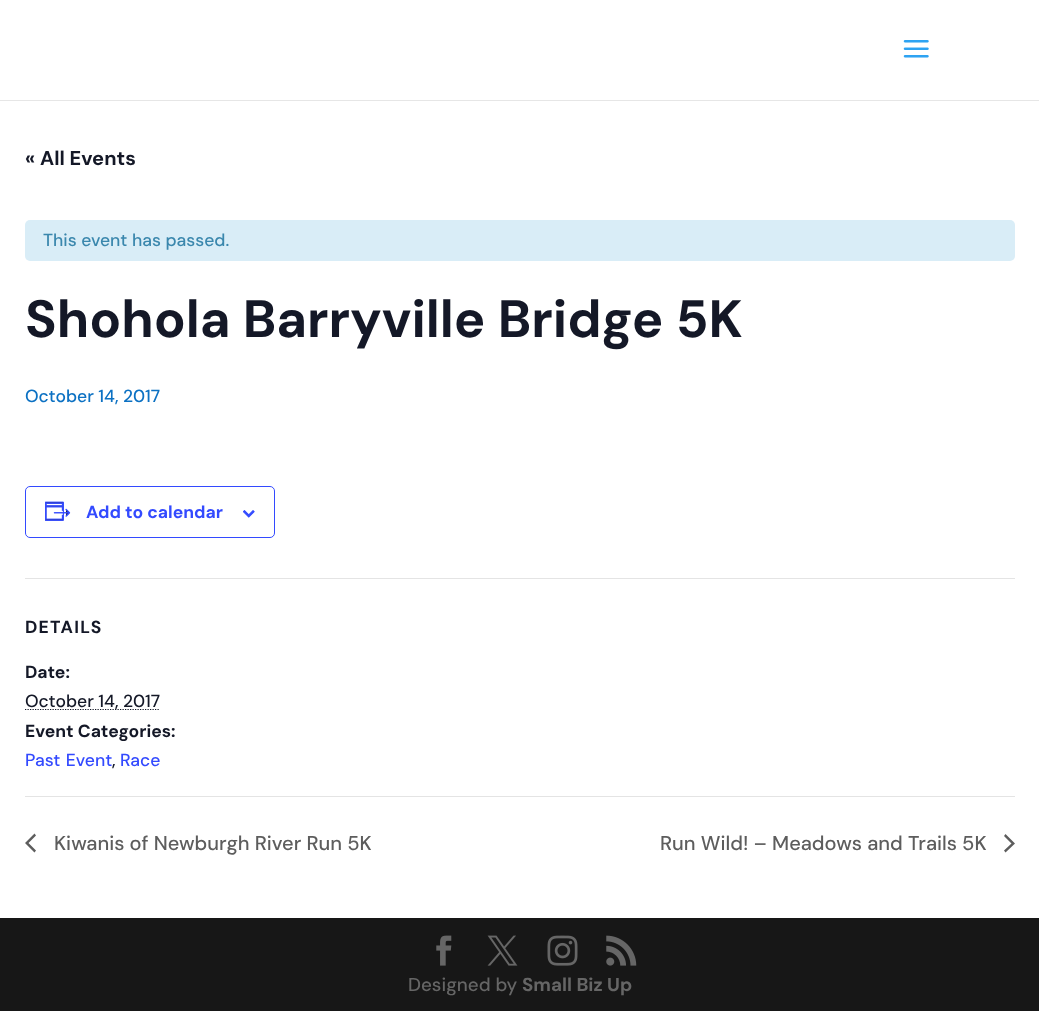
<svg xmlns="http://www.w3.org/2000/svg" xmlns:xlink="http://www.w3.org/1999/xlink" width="1039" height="1011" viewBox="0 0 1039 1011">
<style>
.cls-1{font:bold 20px DM Sans;fill:#141827}
.cls-2{font:500 17.5px DM Sans;fill:#3a87ad}
.cls-3{font:bold 52.5px DM Sans;fill:#141827}
.cls-4{font:500 17.5px DM Sans;fill:#0c71c3}
.cls-5{font:bold 17.5px DM Sans;fill:#334aff}
.cls-6{font:bold 17.5px DM Sans;letter-spacing:1.25px;fill:#141827}
.cls-7{font:bold 17.5px DM Sans;fill:#141827}
.cls-8{font:500 17.5px DM Sans;fill:#141827}
.cls-9{font:500 17.5px DM Sans;fill:#334aff}
.cls-10{font:500 20px DM Sans;fill:#5d5d5d}
.cls-11{font:500 18.75px DM Sans;fill:#666666}
.cls-12{font:bold 18.75px DM Sans;fill:#666666}
</style>
<rect width="100%" height="100%" fill="#ffffff"/>
<rect fill="#e6e6e6" x="0" y="100" width="1039" height="1"/>
<image xlink:href="image0.png" x="903" y="40" width="26" height="18"/>
<rect fill="#d9edf7" x="25" y="220" width="990" height="41" rx="5"/>
<rect fill="none" stroke="#334aff" x="25.5" y="486.5" width="249" height="51" rx="4.5"/>
<image xlink:href="image1.png" x="45" y="501" width="26" height="20"/>
<image xlink:href="image2.png" x="243" y="510" width="12" height="8"/>
<rect fill="#e4e4e4" x="25" y="578" width="990" height="1"/>
<path fill="none" stroke="#141827" stroke-width="1.2" stroke-dasharray="1.25 1.25" d="M25 709.5H160"/>
<rect fill="#e4e4e4" x="25" y="796" width="990" height="1"/>
<path fill="#5d5d5d" d="M36 850.5L34.5 852.5L25 843L34.5 833.5L36 835.5L28.5 843Z"/>
<path fill="#5d5d5d" d="M1004 836L1005.5 834L1015 843.5L1005.5 852.5L1004 850.5L1011.5 843.5Z"/>
<rect fill="#171717" x="0" y="918" width="1039" height="93"/>
<image xlink:href="image3.png" x="436" y="935" width="16" height="31"/>
<image xlink:href="image4.png" x="487" y="935" width="31" height="31"/>
<image xlink:href="image5.png" x="547" y="935" width="31" height="31"/>
<image xlink:href="image6.png" x="606" y="935" width="31" height="31"/>
<text class="cls-1" x="25" y="165">« All Events</text>
<text class="cls-2" x="43" y="246">This event has passed.</text>
<text class="cls-3" x="25" y="337">Shohola Barryville Bridge 5K</text>
<text class="cls-4" x="25" y="402">October 14, 2017</text>
<text class="cls-5" x="86" y="518">Add to calendar</text>
<text class="cls-6" x="25" y="633">DETAILS</text>
<text class="cls-7" x="25" y="678">Date:</text>
<text class="cls-8" x="25" y="707">October 14, 2017</text>
<text class="cls-7" x="25" y="737">Event Categories:</text>
<text class="cls-9" x="25" y="766" word-spacing="1">Past Event</text>
<text class="cls-8" x="112" y="766">,</text>
<text class="cls-9" x="120" y="766">Race</text>
<text class="cls-10" x="54" y="850">Kiwanis of Newburgh River Run 5K</text>
<text class="cls-10" x="660" y="850">Run Wild! – Meadows and Trails 5K</text>
<text class="cls-11" x="408" y="991">Designed by</text>
<text class="cls-12" x="522" y="991">Small Biz Up</text>
</svg>
